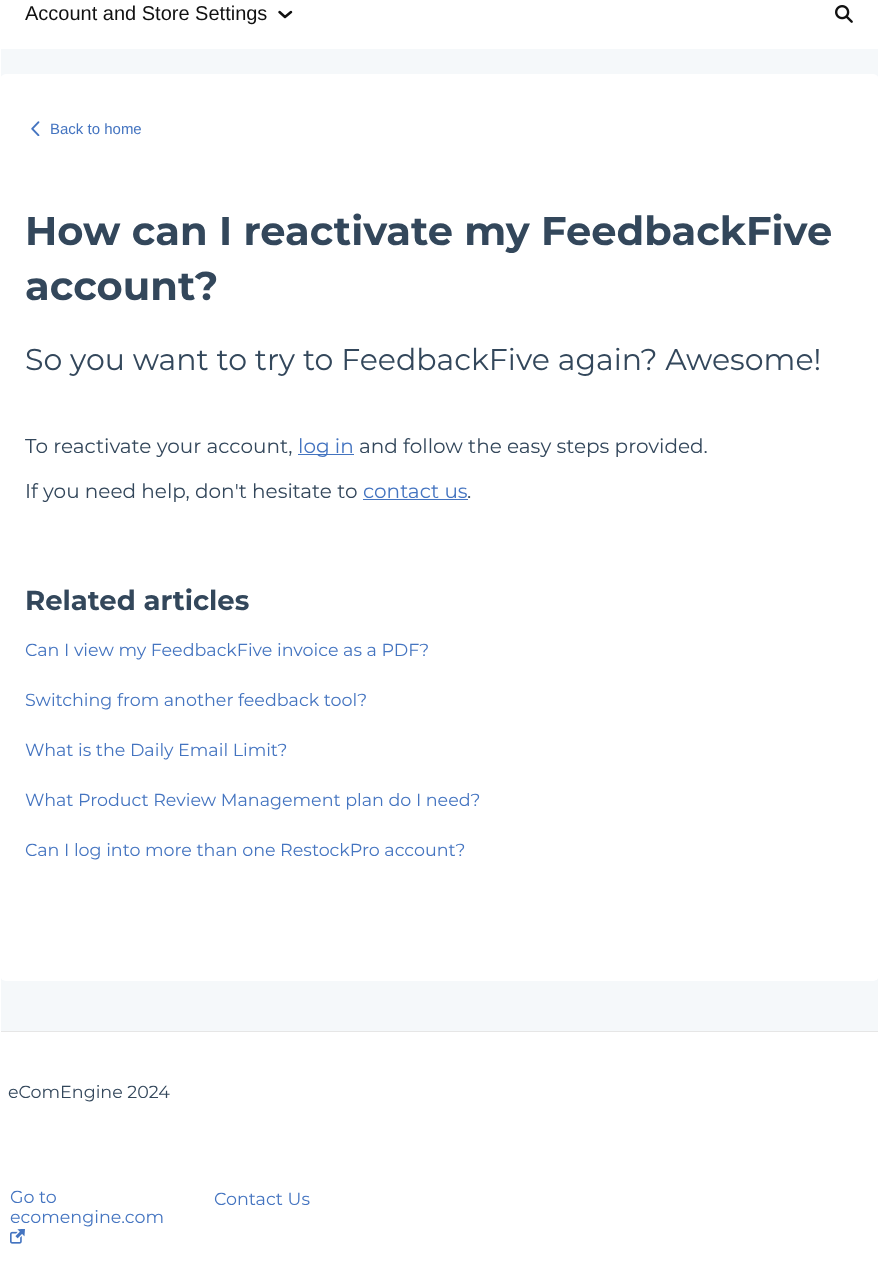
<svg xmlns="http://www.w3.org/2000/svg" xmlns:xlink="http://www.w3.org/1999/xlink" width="878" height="1281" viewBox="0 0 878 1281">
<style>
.cls-1{font:20px Liberation Sans;fill:#111111}
.cls-2{font:15px Liberation Sans;fill:#4474c0}
.cls-3{font:bold 40px Montserrat;fill:#33475b}
.cls-4{font:30px Montserrat;fill:#33475b}
.cls-5{font:20px Montserrat;fill:#33475b}
.cls-6{font:20px Montserrat;fill:#4474c0}
.cls-7{font:bold 27.5px Montserrat;fill:#33475b}
.cls-8{font:17.5px Montserrat;fill:#4474c0}
.cls-9{font:17.5px Montserrat;fill:#33475b}
</style>
<rect width="100%" height="100%" fill="#f5f8fa"/>
<rect fill="#ffffff" x="0" y="74" width="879" height="907" rx="6"/>
<rect fill="#e6e6e6" x="0" y="1031" width="878" height="1"/>
<rect fill="#ffffff" x="0" y="0" width="1" height="1032"/>
<rect fill="#ffffff" x="1" y="0" width="877" height="49"/>
<path fill="none" stroke="#111111" stroke-width="2.5" stroke-linecap="round" stroke-linejoin="round" d="M291 12L285 17L279.5 12"/>
<image xlink:href="image0.png" x="835" y="5" width="18" height="18"/>
<image xlink:href="image1.png" x="31" y="121" width="9" height="15"/>
<rect fill="#4474c0" x="298" y="454" width="56" height="1"/>
<rect fill="#4474c0" x="363" y="499" width="105" height="1"/>
<rect fill="#ffffff" x="0" y="1032" width="878" height="249"/>
<image xlink:href="image2.png" x="10" y="1229" width="15" height="15"/>
<text class="cls-1" x="25" y="20">Account and Store Settings</text>
<text class="cls-2" x="50" y="134">Back to home</text>
<text class="cls-3"><tspan x="25" y="245">How can I reactivate my FeedbackFive</tspan><tspan x="25" y="300">account?</tspan></text>
<text class="cls-4" x="25" y="370">So you want to try to FeedbackFive again? Awesome!</text>
<text class="cls-5" x="25" y="453">To reactivate your account,</text>
<text class="cls-6" x="298" y="453">log in</text>
<text class="cls-5" x="359" y="453">and follow the easy steps provided.</text>
<text class="cls-5" x="25" y="498">If you need help, don't hesitate to</text>
<text class="cls-6" x="363" y="498">contact us</text>
<text class="cls-5" x="467" y="498">.</text>
<text class="cls-7" x="25" y="610">Related articles</text>
<text class="cls-8" x="25" y="656">Can I view my FeedbackFive invoice as a PDF?</text>
<text class="cls-8" x="25" y="706">Switching from another feedback tool?</text>
<text class="cls-8" x="25" y="756">What is the Daily Email Limit?</text>
<text class="cls-8" x="25" y="806">What Product Review Management plan do I need?</text>
<text class="cls-8" x="25" y="856">Can I log into more than one RestockPro account?</text>
<text class="cls-9" x="8" y="1098">eComEngine 2024</text>
<text class="cls-8"><tspan x="10" y="1203">Go to</tspan><tspan x="10" y="1223">ecomengine.com</tspan></text>
<text class="cls-8" x="214" y="1205">Contact Us</text>
</svg>
